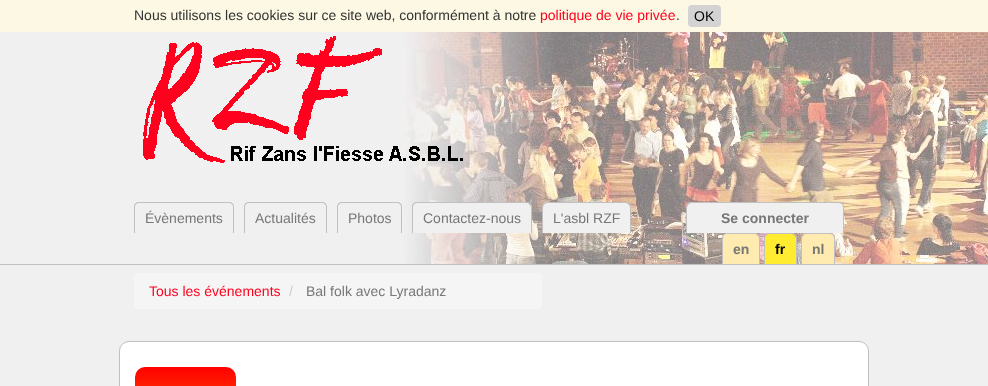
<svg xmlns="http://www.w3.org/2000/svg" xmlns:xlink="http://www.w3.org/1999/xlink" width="988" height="386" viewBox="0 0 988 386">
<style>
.cls-1{font:14px Liberation Sans;fill:#333333}
.cls-2{font:14px Liberation Sans;fill:#ff001e}
.cls-3{font:14px Liberation Sans;fill:#000000}
.cls-4{font:14px Liberation Sans;fill:#777777}
.cls-5{font:bold 14px Liberation Sans;fill:#777777}
.cls-6{font:bold 14px Liberation Sans;fill:#000000}
.cls-7{font:14px Liberation Sans;fill:#cccccc}
</style>
<defs>
<linearGradient id="g1" gradientUnits="userSpaceOnUse" x1="186" y1="367" x2="186" y2="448"><stop offset="0" stop-color="#ff0000"/><stop offset="0.5" stop-color="#ff3e00"/><stop offset="1" stop-color="#aa0000"/></linearGradient>
</defs>
<rect width="100%" height="100%" fill="#fcf8e3"/>
<rect fill="#d3d3d3" x="688" y="5" width="33" height="22" rx="4"/>
<rect fill="#f0f0f0" x="0" y="32" width="388" height="232"/>
<image xlink:href="image0.png" x="388" y="32" width="600" height="232"/>
<rect fill="#c0c0c0" x="0" y="264" width="988" height="1"/>
<image xlink:href="image1.png" x="143" y="36" width="320" height="127"/>
<path fill="#c0c0c0" fill-rule="evenodd" d="M139 202H229C232 202 234 204 234 207V233H134V207C134 204 136 202 139 202ZM139 203H229C231 203 233 205 233 207V233H135V207C135 205 137 203 139 203Z"/>
<path fill="#f0f0f0" d="M140 203H228C231 203 233 205 233 208V233H135V208C135 205 137 203 140 203Z"/>
<path fill="#c0c0c0" fill-rule="evenodd" d="M249 202H322C325 202 327 204 327 207V233H244V207C244 204 246 202 249 202ZM249 203H322C324 203 326 205 326 207V233H245V207C245 205 247 203 249 203Z"/>
<path fill="#f0f0f0" d="M250 203H321C324 203 326 205 326 208V233H245V208C245 205 247 203 250 203Z"/>
<path fill="#c0c0c0" fill-rule="evenodd" d="M342 202H397C400 202 402 204 402 207V233H337V207C337 204 339 202 342 202ZM342 203H397C399 203 401 205 401 207V233H338V207C338 205 340 203 342 203Z"/>
<path fill="#f0f0f0" d="M343 203H396C399 203 401 205 401 208V233H338V208C338 205 340 203 343 203Z"/>
<path fill="#c0c0c0" fill-rule="evenodd" d="M417 202H527C530 202 532 204 532 207V233H412V207C412 204 414 202 417 202ZM417 203H527C529 203 531 205 531 207V233H413V207C413 205 415 203 417 203Z"/>
<path fill="#f0f0f0" d="M418 203H526C529 203 531 205 531 208V233H413V208C413 205 415 203 418 203Z"/>
<path fill="#c0c0c0" fill-rule="evenodd" d="M547 202H626C629 202 631 204 631 207V233H542V207C542 204 544 202 547 202ZM547 203H626C628 203 630 205 630 207V233H543V207C543 205 545 203 547 203Z"/>
<path fill="#f0f0f0" d="M548 203H625C628 203 630 205 630 208V233H543V208C543 205 545 203 548 203Z"/>
<path fill="#c0c0c0" fill-rule="evenodd" d="M691 202H839C842 202 844 204 844 207V233H686V207C686 204 688 202 691 202ZM691 203H839C841 203 843 205 843 207V233H687V207C687 205 689 203 691 203Z"/>
<path fill="#f0f0f0" d="M692 203H838C841 203 843 205 843 208V233H687V208C687 205 689 203 692 203Z"/>
<path fill="#c0c0c0" fill-rule="evenodd" d="M727 233H755C758 233 760 235 760 238V264H722V238C722 235 724 233 727 233ZM727 234H755C757 234 759 236 759 238V264H723V238C723 236 725 234 727 234Z"/>
<path fill="#ffebb0" d="M728 234H754C757 234 759 236 759 239V264H723V239C723 236 725 234 728 234Z"/>
<path fill="#c0c0c0" fill-rule="evenodd" d="M769 233H792C795 233 797 235 797 238V264H764V238C764 235 766 233 769 233ZM769 234H792C794 234 796 236 796 238V264H765V238C765 236 767 234 769 234Z"/>
<path fill="#ffeb30" d="M770 234H791C794 234 796 236 796 239V264H765V239C765 236 767 234 770 234Z"/>
<path fill="#c0c0c0" fill-rule="evenodd" d="M806 233H830C833 233 835 235 835 238V264H801V238C801 235 803 233 806 233ZM806 234H830C832 234 834 236 834 238V264H802V238C802 236 804 234 806 234Z"/>
<path fill="#ffebb0" d="M807 234H829C832 234 834 236 834 239V264H802V239C802 236 804 234 807 234Z"/>
<rect fill="#f0f0f0" x="0" y="265" width="988" height="121"/>
<rect fill="#f5f5f5" x="134" y="273" width="408" height="36" rx="4"/>
<rect fill="#ffffff" stroke="#c0c0c0" x="119.5" y="341.5" width="749" height="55" rx="9.5"/>
<rect fill="url(#g1)" x="135" y="367" width="101" height="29" rx="10"/>
<text class="cls-1" x="134" y="20">Nous utilisons les cookies sur ce site web, conformément à notre</text>
<text class="cls-2" x="540" y="20">politique de vie privée</text>
<text class="cls-1" x="676" y="20">.</text>
<text class="cls-3" x="694" y="21">OK</text>
<text class="cls-4" x="145" y="223">Évènements</text>
<text class="cls-4" x="255" y="223">Actualités</text>
<text class="cls-4" x="348" y="223">Photos</text>
<text class="cls-4" x="423" y="223">Contactez-nous</text>
<text class="cls-4" x="553" y="223">L'asbl RZF</text>
<text class="cls-5" x="721" y="223">Se connecter</text>
<text class="cls-5" x="733" y="254">en</text>
<text class="cls-6" x="775" y="254">fr</text>
<text class="cls-5" x="812" y="254">nl</text>
<text class="cls-2" x="149" y="296">Tous les événements</text>
<text class="cls-7" x="289" y="296">/</text>
<text class="cls-4" x="306" y="296">Bal folk avec Lyradanz</text>
</svg>
